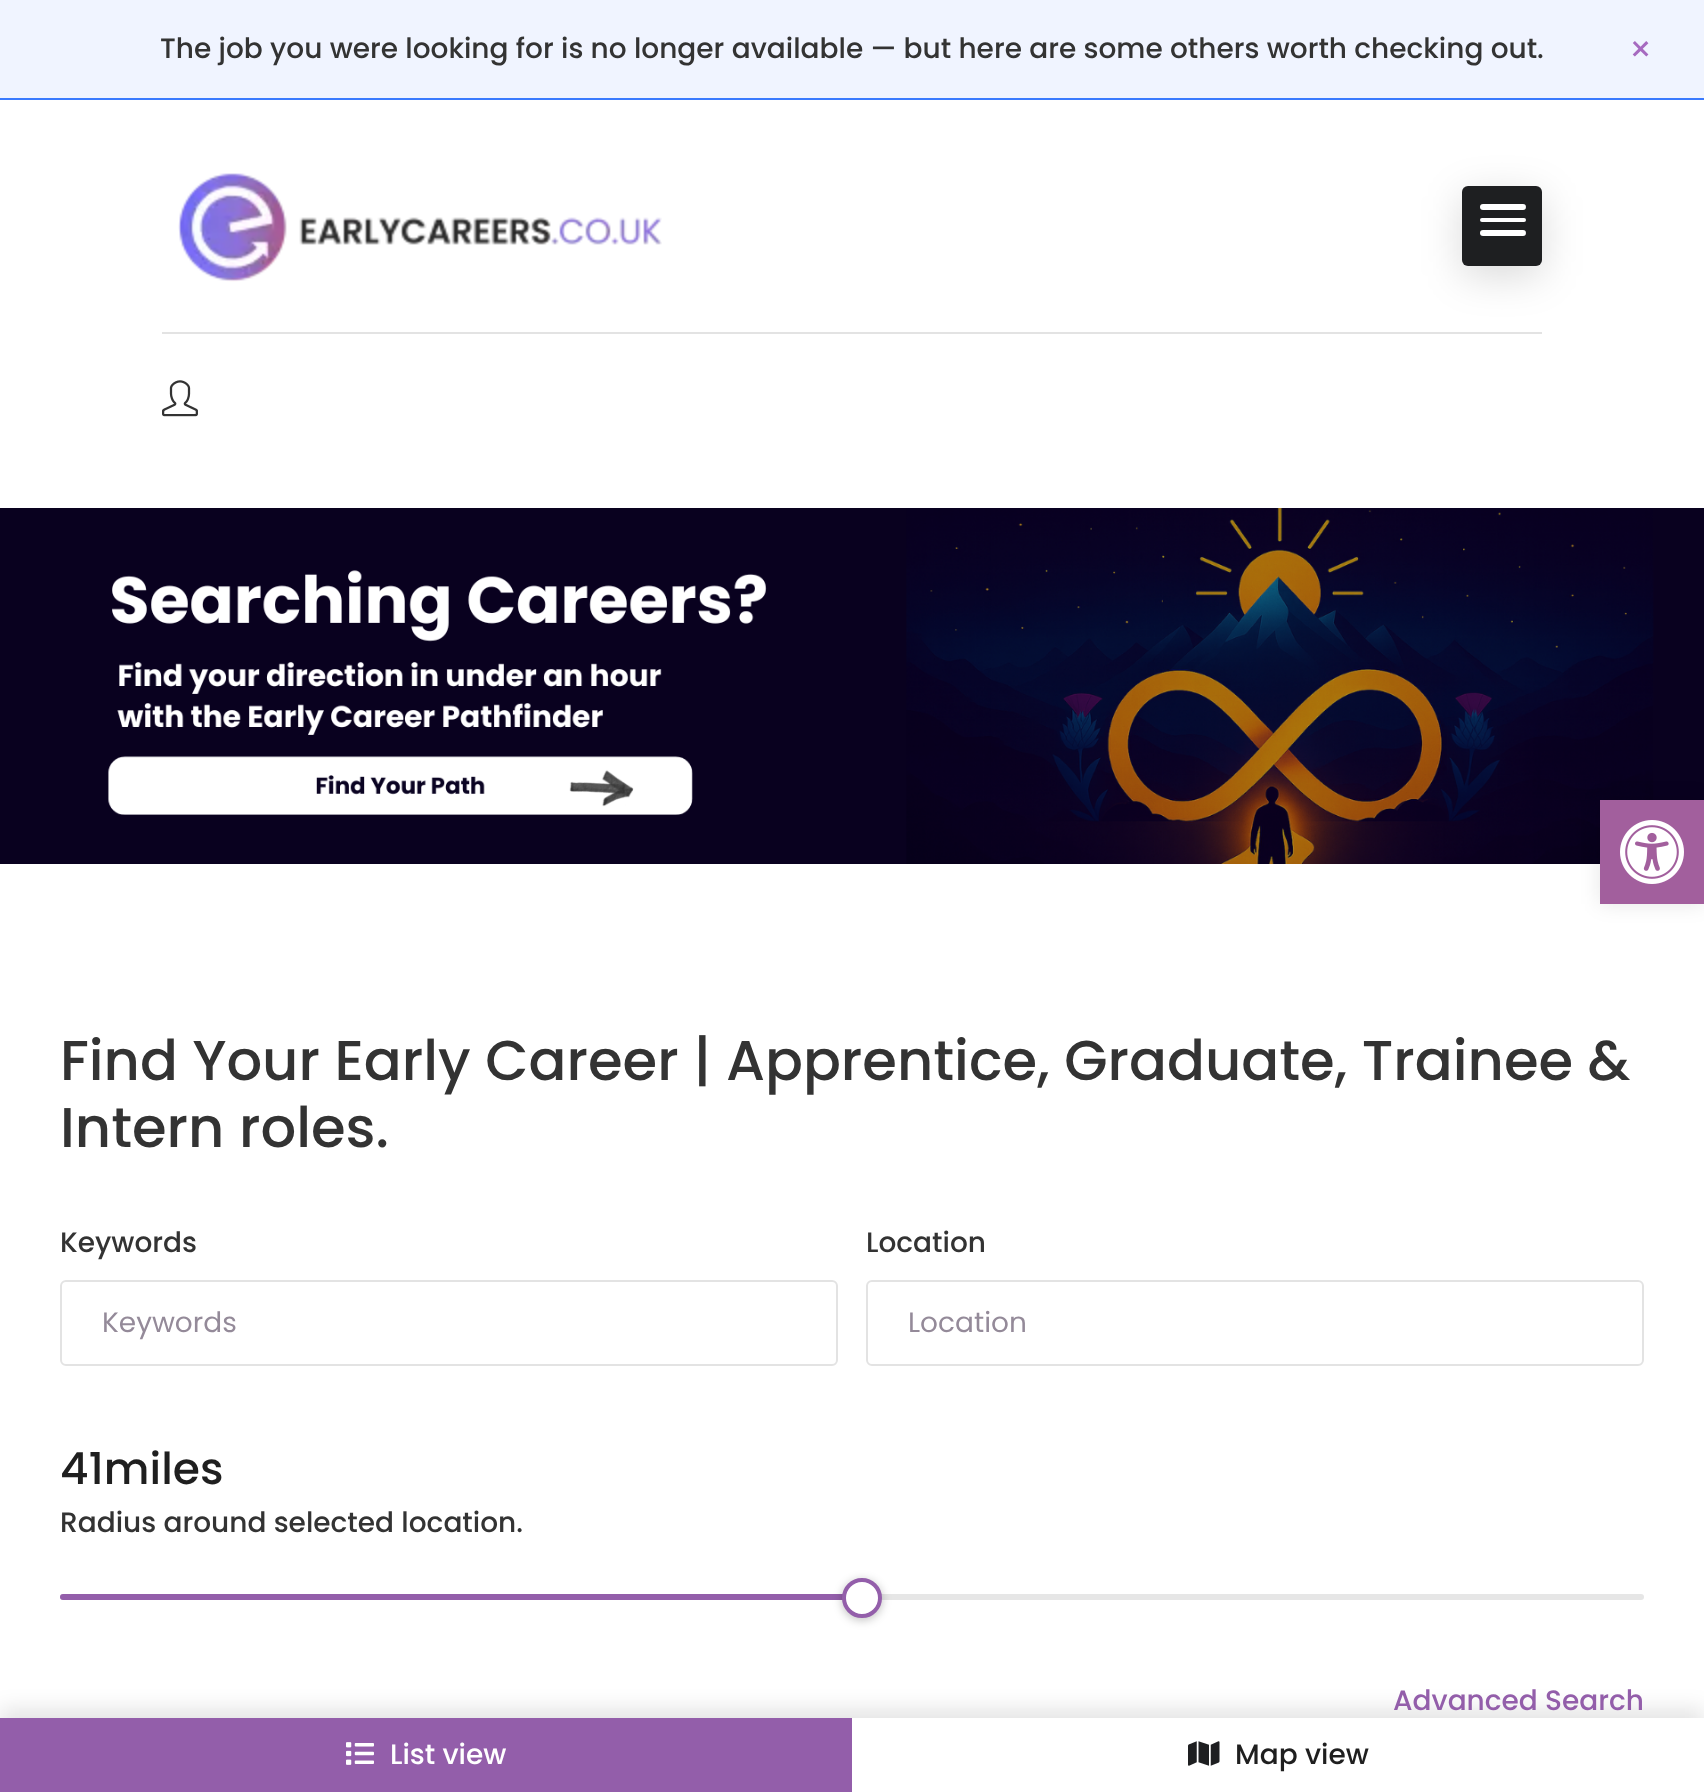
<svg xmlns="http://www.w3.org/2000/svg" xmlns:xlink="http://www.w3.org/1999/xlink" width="1704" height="1792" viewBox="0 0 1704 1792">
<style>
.cls-1{font:500 28px Poppins;fill:#333333}
.cls-2{font:36px Poppins;fill:#a66ac0}
.cls-3{font:500 56px Poppins;fill:#333333}
.cls-4{font:28px Poppins;fill:#948a99}
.cls-5{font:500 44px Poppins;fill:#1f1f1f}
.cls-6{font:500 28px Poppins;fill:#935eaa}
.cls-7{font:500 28px Poppins;fill:#ffffff}
.cls-8{font:500 28px Poppins;fill:#1f1f1f}
</style>
<rect width="100%" height="100%" fill="#ffffff"/>
<rect fill="#f0f4ff" x="0" y="0" width="1704" height="98"/>
<rect fill="#3a7afe" x="0" y="98" width="1704" height="2"/>
<image xlink:href="image3.png" x="0" y="508" width="1704" height="356"/>
<rect fill="#000000" fill-opacity="0.1" filter="blur(10px)" x="1600" y="800" width="104" height="104"/>
<rect fill="#a25f9d" x="1600" y="800" width="104" height="104"/>
<image xlink:href="image0.png" x="1620" y="820" width="64" height="64"/>
<image xlink:href="image1.png" x="178" y="173" width="484" height="109"/>
<rect fill="#e3e3e3" x="162" y="332" width="1380" height="2"/>
<rect fill="#000000" fill-opacity="0.15" filter="blur(20px)" x="1462" y="196" width="80" height="80" rx="6"/>
<rect fill="#1e1f21" x="1462" y="186" width="80" height="80" rx="6"/>
<rect fill="#ffffff" x="1480" y="230" width="46" height="6" rx="3"/>
<rect fill="#ffffff" x="1480" y="204" width="46" height="6" rx="3"/>
<rect fill="#ffffff" x="1480" y="218" width="46" height="4" rx="2"/>
<image xlink:href="image2.png" x="162" y="380" width="36" height="37"/>
<rect fill="none" stroke="#e3e3e3" stroke-width="2" x="61" y="1281" width="776" height="84" rx="5"/>
<rect fill="none" stroke="#e3e3e3" stroke-width="2" x="867" y="1281" width="776" height="84" rx="5"/>
<rect fill="#e6e6e6" x="60" y="1594" width="1584" height="6" rx="3"/>
<rect fill="#935eaa" x="60" y="1594" width="802" height="6" rx="3"/>
<rect fill="#000000" fill-opacity="0.25" filter="blur(5px)" x="842" y="1580" width="40" height="40" rx="20"/>
<circle fill="#ffffff" stroke="#935eaa" stroke-width="4" cx="862" cy="1598" r="18"/>
<rect fill="#000000" fill-opacity="0.1" filter="blur(10px)" x="0" y="1708" width="1704" height="74"/>
<rect fill="#ffffff" x="852" y="1718" width="852" height="74"/>
<rect fill="#935eaa" x="0" y="1718" width="852" height="74"/>
<image xlink:href="image4.png" x="346" y="1742" width="28" height="23"/>
<image xlink:href="image5.png" x="1188" y="1741" width="32" height="25"/>
<text class="cls-1" x="160" y="58">The job you were looking for is no longer available — but here are some others worth checking out.</text>
<text class="cls-2" x="1629" y="62">×</text>
<text class="cls-3"><tspan x="60" y="1080">Find Your Early Career | Apprentice, Graduate, Trainee &amp;</tspan><tspan x="60" y="1147">Intern roles.</tspan></text>
<text class="cls-1" x="60" y="1252">Keywords</text>
<text class="cls-4" x="102" y="1332">Keywords</text>
<text class="cls-1" x="866" y="1252">Location</text>
<text class="cls-4" x="908" y="1332">Location</text>
<text class="cls-5" x="60" y="1484">41miles</text>
<text class="cls-1" x="60" y="1532">Radius around selected location.</text>
<text class="cls-6" x="1393" y="1710">Advanced Search</text>
<text class="cls-7" x="390" y="1764">List view</text>
<text class="cls-8" x="1235" y="1764">Map view</text>
</svg>
